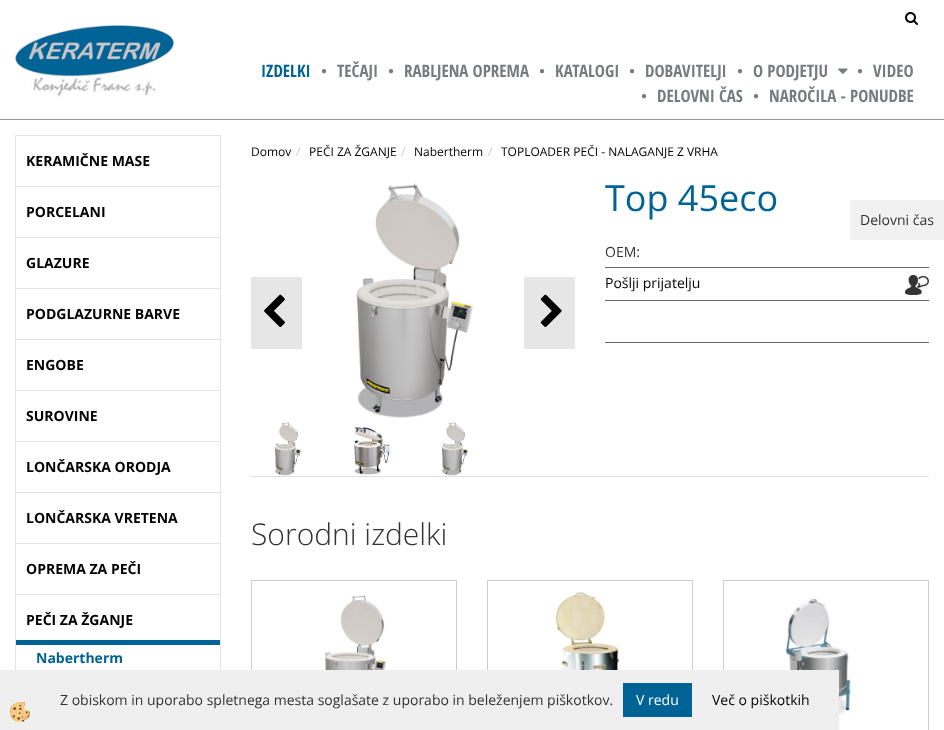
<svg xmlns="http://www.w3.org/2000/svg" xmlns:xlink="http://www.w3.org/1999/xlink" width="944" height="730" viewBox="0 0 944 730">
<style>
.cls-1{font:bold 17px Open Sans Condensed;fill:#006395}
.cls-2{font:bold 10px Liberation Sans;fill:#767b7d}
.cls-3{font:bold 17px Open Sans Condensed;fill:#767b7d}
.cls-4{font:bold 14px Open Sans;fill:#000000}
.cls-5{font:bold 14px Open Sans;fill:#006395}
.cls-6{font:12px Open Sans;fill:#000000}
.cls-7{font:12px Open Sans;fill:#cccccc}
.cls-8{font:36px Open Sans;fill:#006395}
.cls-9{font:14px Open Sans;fill:#333333}
.cls-10{font:14px Open Sans;fill:#000000}
.cls-11{font:300 30px Open Sans;fill:#333333}
.cls-12{font:14px Open Sans;fill:#ffffff}
</style>
<rect width="100%" height="100%" fill="#ffffff"/>
<image xlink:href="image0.png" x="905" y="12" width="13" height="13"/>
<rect fill="#999999" x="0" y="119" width="944" height="1"/>
<image xlink:href="image1.png" x="15" y="25" width="159" height="72"/>
<image xlink:href="image2.png" x="838" y="68" width="10" height="6"/>
<rect fill="none" stroke="#e4e4e4" x="15.5" y="135.5" width="205" height="51"/>
<rect fill="none" stroke="#e4e4e4" x="15.5" y="186.5" width="205" height="51"/>
<rect fill="none" stroke="#e4e4e4" x="15.5" y="237.5" width="205" height="51"/>
<rect fill="none" stroke="#e4e4e4" x="15.5" y="288.5" width="205" height="51"/>
<rect fill="none" stroke="#e4e4e4" x="15.5" y="339.5" width="205" height="51"/>
<rect fill="none" stroke="#e4e4e4" x="15.5" y="390.5" width="205" height="51"/>
<rect fill="none" stroke="#e4e4e4" x="15.5" y="441.5" width="205" height="51"/>
<rect fill="none" stroke="#e4e4e4" x="15.5" y="492.5" width="205" height="51"/>
<rect fill="none" stroke="#e4e4e4" x="15.5" y="543.5" width="205" height="51"/>
<rect fill="none" stroke="#e4e4e4" x="15.5" y="594.5" width="205" height="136"/>
<rect fill="#006395" x="16" y="640" width="204" height="5"/>
<rect fill="#e6e6e6" x="251" y="277" width="51" height="72"/>
<image xlink:href="image3.png" x="264" y="294" width="21" height="33"/>
<image xlink:href="image4.png" x="356" y="183" width="117" height="235"/>
<rect fill="#e6e6e6" x="524" y="277" width="51" height="72"/>
<image xlink:href="image5.png" x="540" y="294" width="22" height="33"/>
<image xlink:href="image6.png" x="274" y="422" width="28" height="54"/>
<image xlink:href="image7.png" x="354" y="426" width="37" height="49"/>
<image xlink:href="image8.png" x="441" y="422" width="28" height="54"/>
<rect fill="#666666" x="605" y="267" width="324" height="1"/>
<rect fill="#666666" x="605" y="300" width="324" height="1"/>
<image xlink:href="image9.png" x="905" y="275" width="24" height="20"/>
<rect fill="#666666" x="605" y="342" width="324" height="1"/>
<rect fill="#dddddd" x="251" y="476" width="678" height="1"/>
<rect fill="none" stroke="#cccccc" x="251.5" y="580.5" width="205" height="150"/>
<image xlink:href="image10.png" x="324" y="595" width="63" height="75"/>
<rect fill="none" stroke="#cccccc" x="487.5" y="580.5" width="205" height="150"/>
<image xlink:href="image11.png" x="553" y="591" width="70" height="79"/>
<rect fill="none" stroke="#cccccc" x="723.5" y="580.5" width="205" height="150"/>
<image xlink:href="image12.png" x="785" y="599" width="67" height="124"/>
<rect fill="#f1f1f1" x="850" y="200" width="94" height="40"/>
<rect fill="#efefef" x="0" y="670" width="839" height="60"/>
<image xlink:href="image13.png" x="10" y="702" width="20" height="20"/>
<rect fill="#006395" x="623" y="683" width="69" height="34"/>
<text class="cls-1" x="261" y="77">IZDELKI</text>
<text class="cls-2" x="321" y="74">●</text>
<text class="cls-3" x="337" y="77">TEČAJI</text>
<text class="cls-2" x="388" y="74">●</text>
<text class="cls-3" x="404" y="77">RABLJENA OPREMA</text>
<text class="cls-2" x="539" y="74">●</text>
<text class="cls-3" x="555" y="77">KATALOGI</text>
<text class="cls-2" x="629" y="74">●</text>
<text class="cls-3" x="645" y="77">DOBAVITELJI</text>
<text class="cls-2" x="737" y="74">●</text>
<text class="cls-3" x="753" y="77">O PODJETJU</text>
<text class="cls-2" x="857" y="74">●</text>
<text class="cls-3" x="873" y="77">VIDEO</text>
<text class="cls-2" x="641" y="99">●</text>
<text class="cls-3" x="657" y="102">DELOVNI ČAS</text>
<text class="cls-2" x="753" y="99">●</text>
<text class="cls-3" x="769" y="102">NAROČILA - PONUDBE</text>
<text class="cls-4" x="26" y="166">KERAMIČNE MASE</text>
<text class="cls-4" x="26" y="217">PORCELANI</text>
<text class="cls-4" x="26" y="268">GLAZURE</text>
<text class="cls-4" x="26" y="319">PODGLAZURNE BARVE</text>
<text class="cls-4" x="26" y="370">ENGOBE</text>
<text class="cls-4" x="26" y="421">SUROVINE</text>
<text class="cls-4" x="26" y="472">LONČARSKA ORODJA</text>
<text class="cls-4" x="26" y="523">LONČARSKA VRETENA</text>
<text class="cls-4" x="26" y="574">OPREMA ZA PEČI</text>
<text class="cls-4" x="26" y="625">PEČI ZA ŽGANJE</text>
<text class="cls-5" x="36" y="663">Nabertherm</text>
<text class="cls-6" x="251" y="156">Domov</text>
<text class="cls-7" x="296" y="156">/</text>
<text class="cls-6" x="309" y="156">PEČI ZA ŽGANJE</text>
<text class="cls-7" x="401" y="156">/</text>
<text class="cls-6" x="414" y="156">Nabertherm</text>
<text class="cls-7" x="488" y="156">/</text>
<text class="cls-6" x="501" y="156">TOPLOADER PEČI - NALAGANJE Z VRHA</text>
<text class="cls-8" x="605" y="211">Top 45eco</text>
<text class="cls-9" x="605" y="257">OEM:</text>
<text class="cls-10" x="605" y="288">Pošlji prijatelju</text>
<text class="cls-11" x="251" y="545">Sorodni izdelki</text>
<text class="cls-9" x="860" y="225">Delovni čas</text>
<text class="cls-9" x="60" y="705">Z obiskom in uporabo spletnega mesta soglašate z uporabo in beleženjem piškotkov.</text>
<text class="cls-12" x="636" y="705">V redu</text>
<text class="cls-10" x="712" y="705">Več o piškotkih</text>
</svg>
